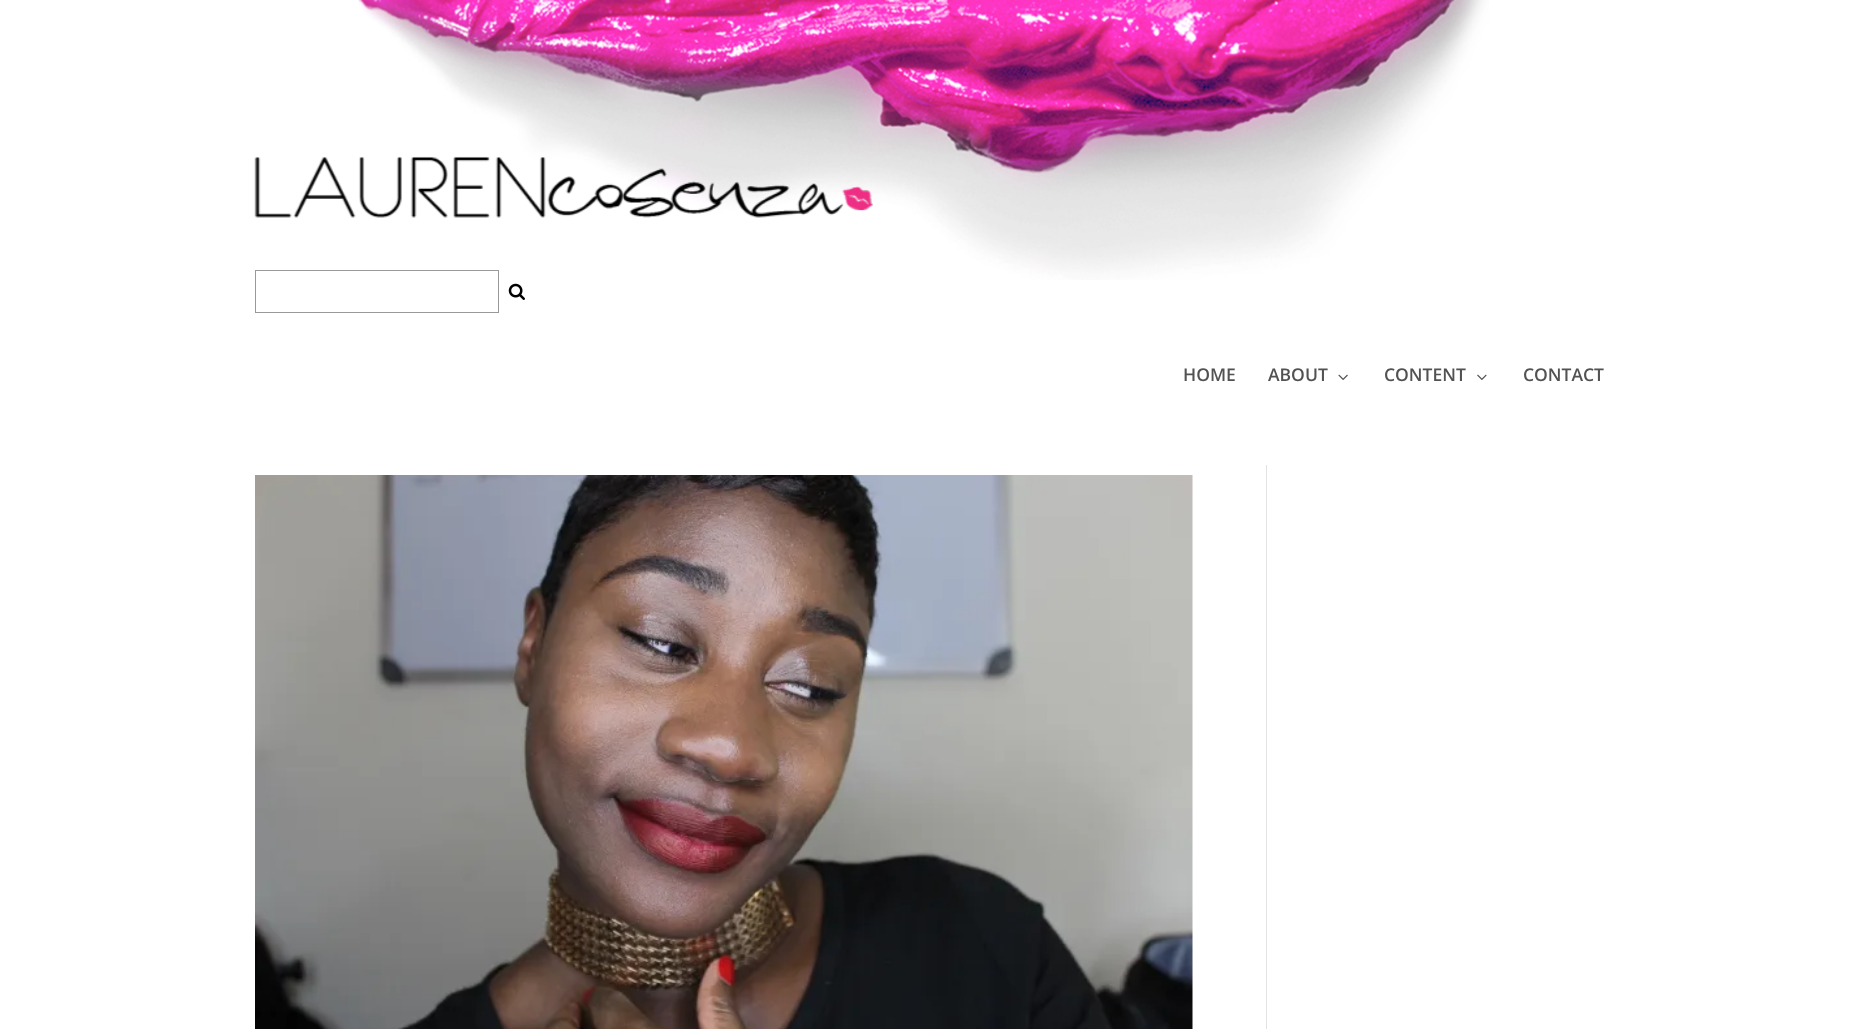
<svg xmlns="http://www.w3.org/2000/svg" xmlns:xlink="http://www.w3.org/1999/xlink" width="1858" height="1029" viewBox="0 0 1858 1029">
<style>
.cls-1{font:600 17.5px Open Sans;fill:#525252}
</style>
<rect width="100%" height="100%" fill="#ffffff"/>
<image xlink:href="image0.png" x="358" y="0" width="1131" height="280"/>
<image xlink:href="image1.png" x="254" y="156" width="619" height="62"/>
<rect fill="none" stroke="#999999" x="255.5" y="270.5" width="243" height="42"/>
<image xlink:href="image2.png" x="508" y="283" width="17" height="17"/>
<image xlink:href="image3.png" x="1338" y="374" width="10" height="6"/>
<image xlink:href="image4.png" x="1477" y="374" width="10" height="6"/>
<image xlink:href="image5.png" x="255" y="475" width="938" height="554"/>
<rect fill="#e2e2e2" x="1266" y="465" width="1" height="564"/>
<text class="cls-1" x="1183" y="381">HOME</text>
<text class="cls-1" x="1268" y="381">ABOUT</text>
<text class="cls-1" x="1384" y="381">CONTENT</text>
<text class="cls-1" x="1523" y="381">CONTACT</text>
</svg>
